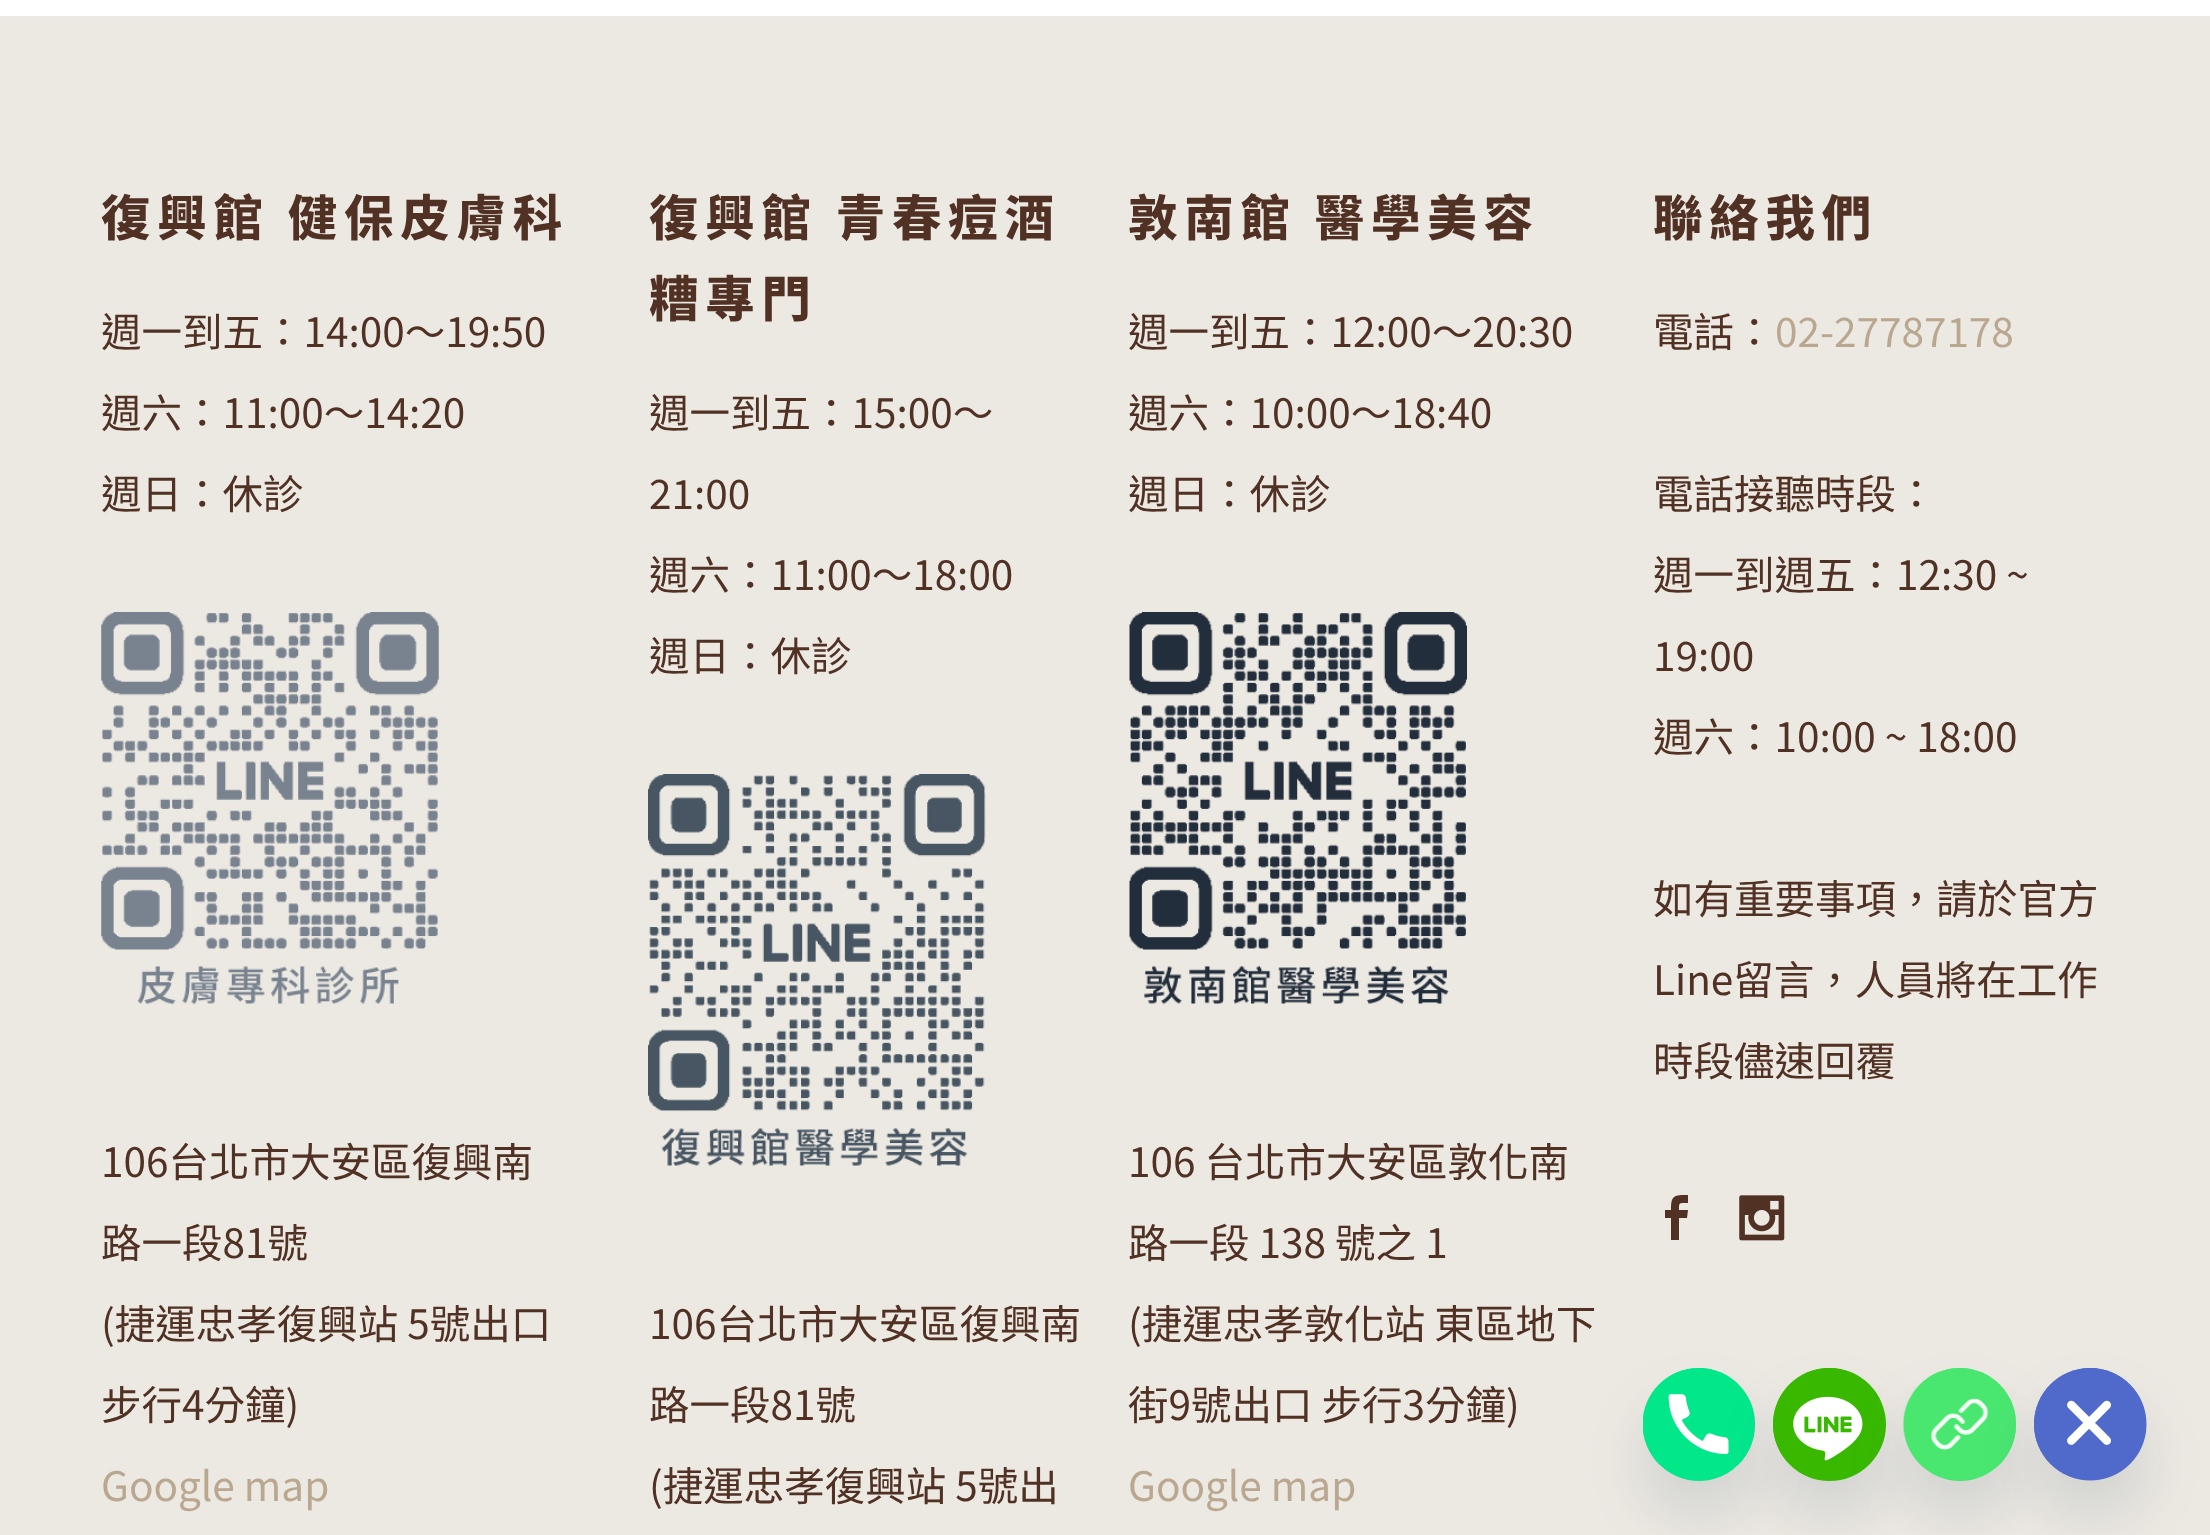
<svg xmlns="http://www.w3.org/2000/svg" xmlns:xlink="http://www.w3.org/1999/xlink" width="2210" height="1535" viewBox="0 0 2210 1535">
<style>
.cls-1{font:800 49.5px Noto Sans TC;letter-spacing:6.75px;fill:#503124}
.cls-2{font:40.5px Noto Sans TC;fill:#503124}
.cls-3{font:40.5px Noto Sans TC;fill:#baa790}
</style>
<rect width="100%" height="100%" fill="#ffffff"/>
<rect fill="#ece8e2" x="0" y="16" width="2210" height="1519"/>
<image xlink:href="image0.png" x="101" y="612" width="338" height="393"/>
<image xlink:href="image1.png" x="648" y="774" width="338" height="393"/>
<image xlink:href="image2.png" x="1129" y="612" width="338" height="393"/>
<path fill="#503124" d="M1671 1240V1218H1665V1210H1671C1671 1195 1674 1195 1688 1195V1203C1679 1203 1679 1202 1679 1210H1688L1687 1218H1679V1240Z"/>
<image xlink:href="image3.png" x="1739" y="1195" width="46" height="46"/>
<rect fill="#49687e" fill-opacity="0.16" filter="blur(27px)" x="1643" y="1404" width="112" height="113" rx="56"/>
<rect fill="#03e78b" x="1643" y="1368" width="112" height="113" rx="56"/>
<image xlink:href="image4.png" x="1643" y="1368" width="112" height="106"/>
<rect fill="#49687e" fill-opacity="0.16" filter="blur(27px)" x="1773" y="1404" width="113" height="113" rx="56.5"/>
<circle fill="#38b900" cx="1829.5" cy="1424.5" r="56.5"/>
<image xlink:href="image5.png" x="1773" y="1368" width="105" height="105"/>
<rect fill="#49687e" fill-opacity="0.16" filter="blur(27px)" x="1904" y="1404" width="112" height="113" rx="56"/>
<rect fill="#49e670" x="1904" y="1368" width="112" height="113" rx="56"/>
<image xlink:href="image6.png" x="1903" y="1368" width="114" height="112"/>
<rect fill="#49687e" fill-opacity="0.16" filter="blur(27px)" x="2034" y="1404" width="113" height="113" rx="56.5"/>
<path fill="#4f6aca" d="M2090 1480C2059 1480 2034 1455 2034 1424C2034 1393 2059 1368 2090 1368C2121 1368 2146 1393 2146 1424C2146 1455 2121 1480 2090 1480Z"/>
<image xlink:href="image7.png" x="2034" y="1368" width="113" height="113"/>
<text class="cls-1" x="101" y="236">復興館 健保皮膚科</text>
<text class="cls-2" x="101" y="347">週一到五：14:00～19:50</text>
<text class="cls-2" x="101" y="428">週六：11:00～14:20</text>
<text class="cls-2" x="101" y="509">週日：休診</text>
<text class="cls-2" x="101" y="1177">106台北市大安區復興南</text>
<text class="cls-2" x="101" y="1258">路一段81號</text>
<text class="cls-2" x="101" y="1339">(捷運忠孝復興站 5號出口</text>
<text class="cls-2" x="101" y="1420">步行4分鐘)</text>
<text class="cls-3" x="101" y="1501">Google map</text>
<text class="cls-1"><tspan x="649" y="236">復興館 青春痘酒</tspan><tspan x="649" y="317">糟專門</tspan></text>
<text class="cls-2" x="649" y="428">週一到五：15:00～</text>
<text class="cls-2" x="649" y="509">21:00</text>
<text class="cls-2" x="649" y="590">週六：11:00～18:00</text>
<text class="cls-2" x="649" y="671">週日：休診</text>
<text class="cls-2" x="649" y="1339">106台北市大安區復興南</text>
<text class="cls-2" x="649" y="1420">路一段81號</text>
<text class="cls-2" x="649" y="1501">(捷運忠孝復興站 5號出</text>
<text class="cls-1" x="1128" y="236">敦南館 醫學美容</text>
<text class="cls-2" x="1128" y="347">週一到五：12:00～20:30</text>
<text class="cls-2" x="1128" y="428">週六：10:00～18:40</text>
<text class="cls-2" x="1128" y="509">週日：休診</text>
<text class="cls-2" x="1128" y="1177">106 台北市大安區敦化南</text>
<text class="cls-2" x="1128" y="1258">路一段 138 號之 1</text>
<text class="cls-2" x="1128" y="1339">(捷運忠孝敦化站 東區地下</text>
<text class="cls-2" x="1128" y="1420">街9號出口 步行3分鐘)</text>
<text class="cls-3" x="1128" y="1501">Google map</text>
<text class="cls-1" x="1653" y="236">聯絡我們</text>
<text class="cls-2" x="1653" y="347">電話：</text>
<text class="cls-3" x="1775" y="347">02-27787178</text>
<text class="cls-2" x="1653" y="509">電話接聽時段：</text>
<text class="cls-2" x="1653" y="590">週一到週五：12:30 ~</text>
<text class="cls-2" x="1653" y="671">19:00</text>
<text class="cls-2" x="1653" y="752">週六：10:00 ~ 18:00</text>
<text class="cls-2" x="1653" y="914">如有重要事項，請於官方</text>
<text class="cls-2" x="1653" y="995">Line留言，人員將在工作</text>
<text class="cls-2" x="1653" y="1076">時段儘速回覆</text>
</svg>
